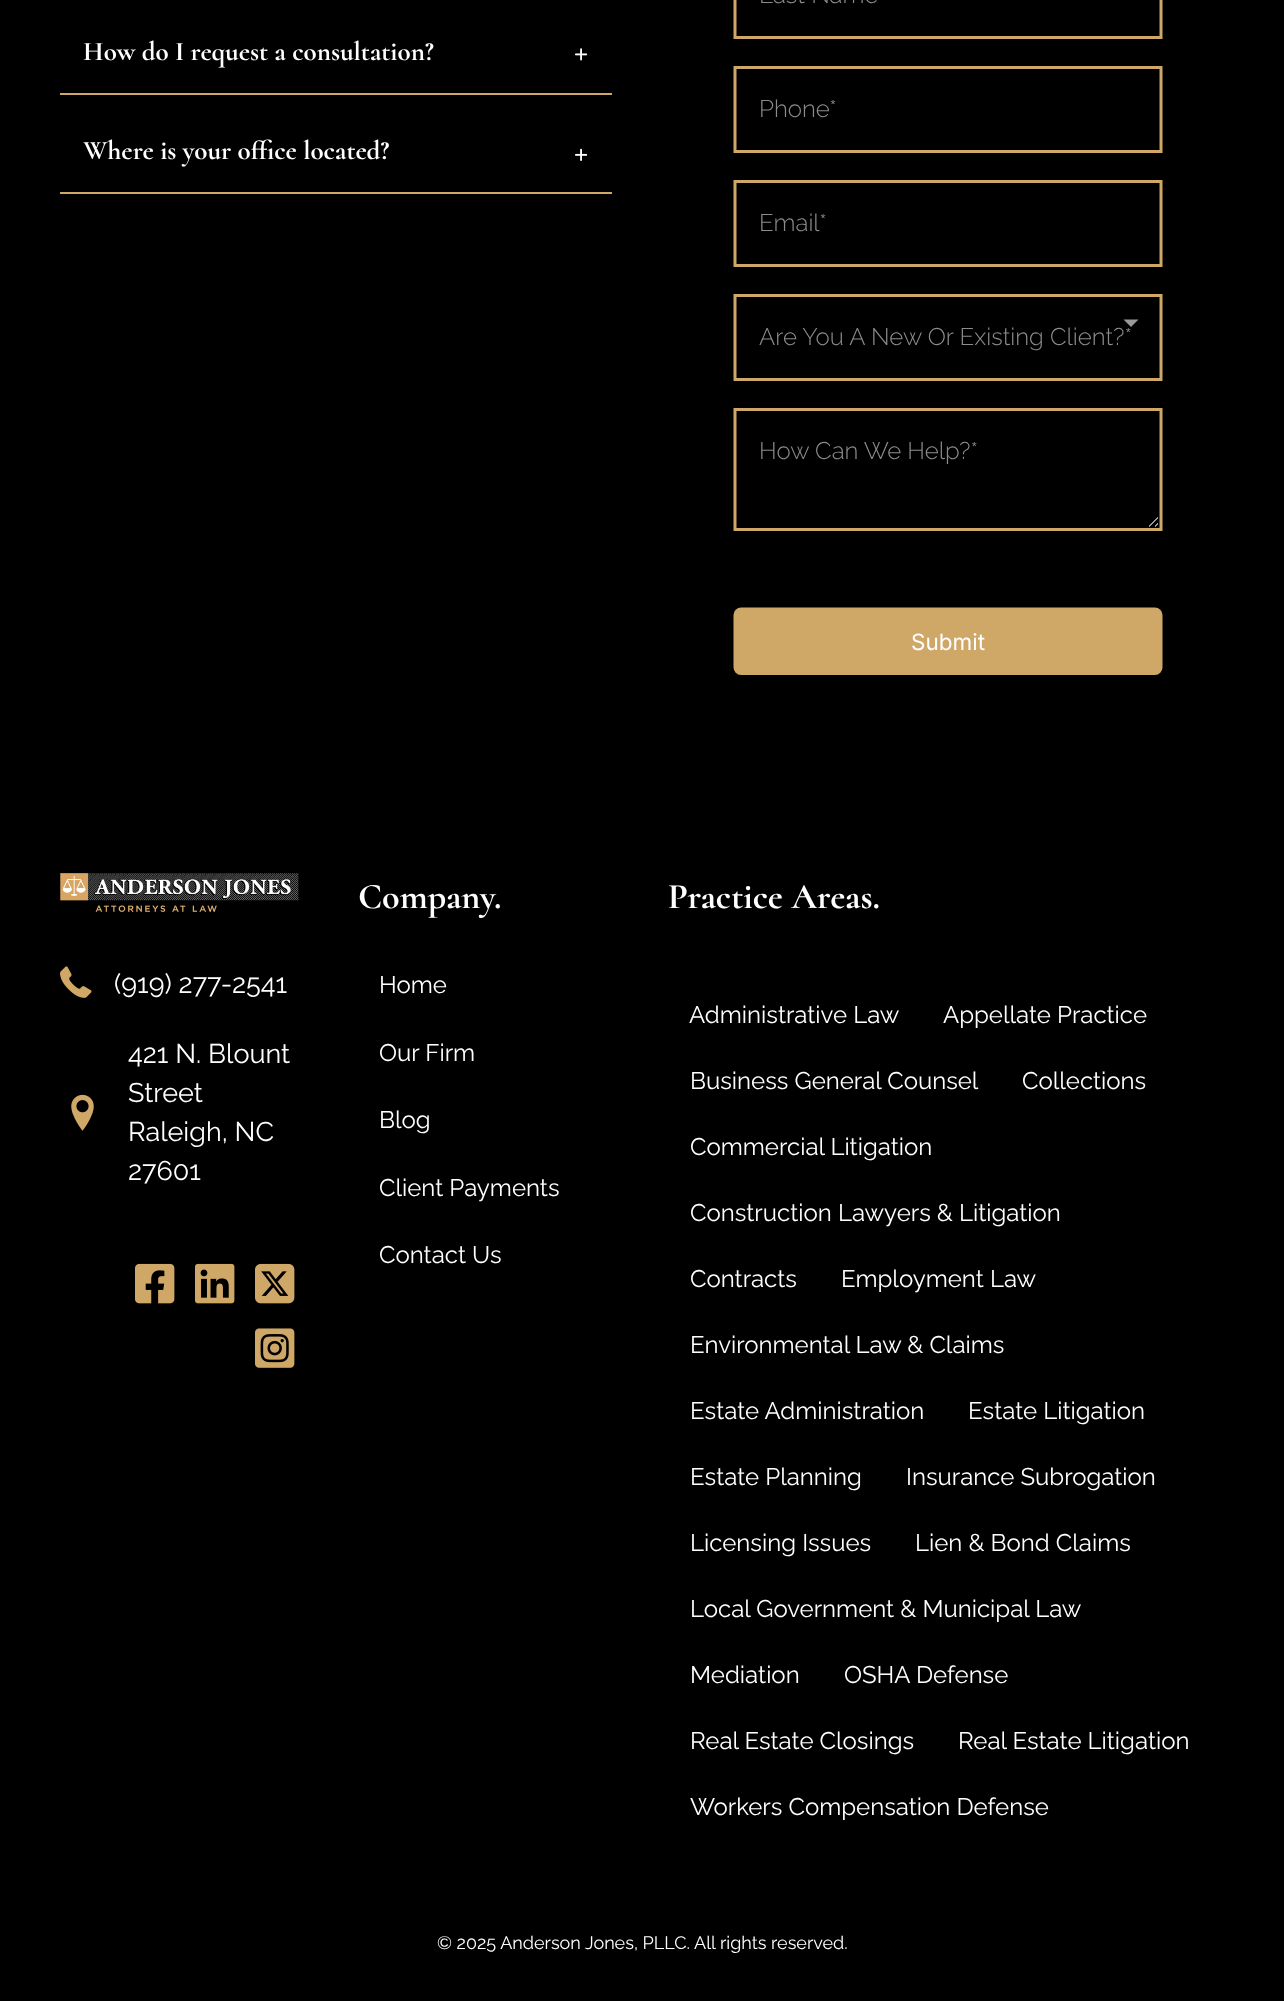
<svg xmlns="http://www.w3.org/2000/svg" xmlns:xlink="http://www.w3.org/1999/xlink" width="1284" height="2001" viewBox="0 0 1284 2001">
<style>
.cls-1{font:300 27px Cormorant;fill:#ffffff}
.cls-2{font:27px Raleway;fill:#ffffff}
.cls-3{font:300 36px Cormorant;fill:#ffffff}
.cls-4{font:24px Raleway;fill:#ffffff}
.cls-5{font:18px Raleway;fill:#ffffff}
</style>
<rect width="100%" height="100%" fill="#000000"/>
<rect fill="#cfa766" x="60" y="93" width="552" height="2"/>
<image xlink:href="image0.png" x="575" y="48" width="13" height="13"/>
<rect fill="#cfa766" x="60" y="192" width="552" height="2"/>
<image xlink:href="image1.png" x="575" y="148" width="13" height="13"/>
<image xlink:href="image2.png" x="733" y="0" width="430" height="675"/>
<image xlink:href="image3.png" x="60" y="873" width="239" height="39"/>
<image xlink:href="image4.png" x="60" y="966" width="32" height="32"/>
<image xlink:href="image5.png" x="71" y="1094" width="23" height="37"/>
<image xlink:href="image6.png" x="135" y="1263" width="40" height="41"/>
<image xlink:href="image7.png" x="195" y="1263" width="40" height="41"/>
<image xlink:href="image8.png" x="255" y="1263" width="40" height="41"/>
<image xlink:href="image9.png" x="255" y="1328" width="40" height="40"/>
<text class="cls-1" x="83" y="60">How do I request a consultation?</text>
<text class="cls-1" x="83" y="159">Where is your office located?</text>
<text class="cls-2" x="114" y="993">(919) 277-2541</text>
<text class="cls-2"><tspan x="128" y="1063">421 N. Blount</tspan><tspan x="128" y="1102">Street</tspan><tspan x="128" y="1141">Raleigh, NC</tspan><tspan x="128" y="1180">27601</tspan></text>
<text class="cls-3" x="358" y="908">Company.</text>
<text class="cls-4" x="379" y="993">Home</text>
<text class="cls-4" x="379" y="1061">Our Firm</text>
<text class="cls-4" x="379" y="1128">Blog</text>
<text class="cls-4" x="379" y="1196">Client Payments</text>
<text class="cls-4" x="379" y="1263">Contact Us</text>
<text class="cls-3" x="668" y="908">Practice Areas.</text>
<text class="cls-4" x="689" y="1023">Administrative Law</text>
<text class="cls-4" x="943" y="1023">Appellate Practice</text>
<text class="cls-4" x="690" y="1089">Business General Counsel</text>
<text class="cls-4" x="1022" y="1089">Collections</text>
<text class="cls-4" x="690" y="1155">Commercial Litigation</text>
<text class="cls-4" x="690" y="1221">Construction Lawyers &amp; Litigation</text>
<text class="cls-4" x="690" y="1287">Contracts</text>
<text class="cls-4" x="841" y="1287">Employment Law</text>
<text class="cls-4" x="690" y="1353">Environmental Law &amp; Claims</text>
<text class="cls-4" x="690" y="1419">Estate Administration</text>
<text class="cls-4" x="968" y="1419">Estate Litigation</text>
<text class="cls-4" x="690" y="1485">Estate Planning</text>
<text class="cls-4" x="906" y="1485">Insurance Subrogation</text>
<text class="cls-4" x="690" y="1551">Licensing Issues</text>
<text class="cls-4" x="915" y="1551">Lien &amp; Bond Claims</text>
<text class="cls-4" x="690" y="1617">Local Government &amp; Municipal Law</text>
<text class="cls-4" x="690" y="1683">Mediation</text>
<text class="cls-4" x="844" y="1683">OSHA Defense</text>
<text class="cls-4" x="690" y="1749">Real Estate Closings</text>
<text class="cls-4" x="958" y="1749">Real Estate Litigation</text>
<text class="cls-4" x="690" y="1815">Workers Compensation Defense</text>
<text class="cls-5" x="437" y="1949">© 2025 Anderson Jones, PLLC. All rights reserved.</text>
</svg>
